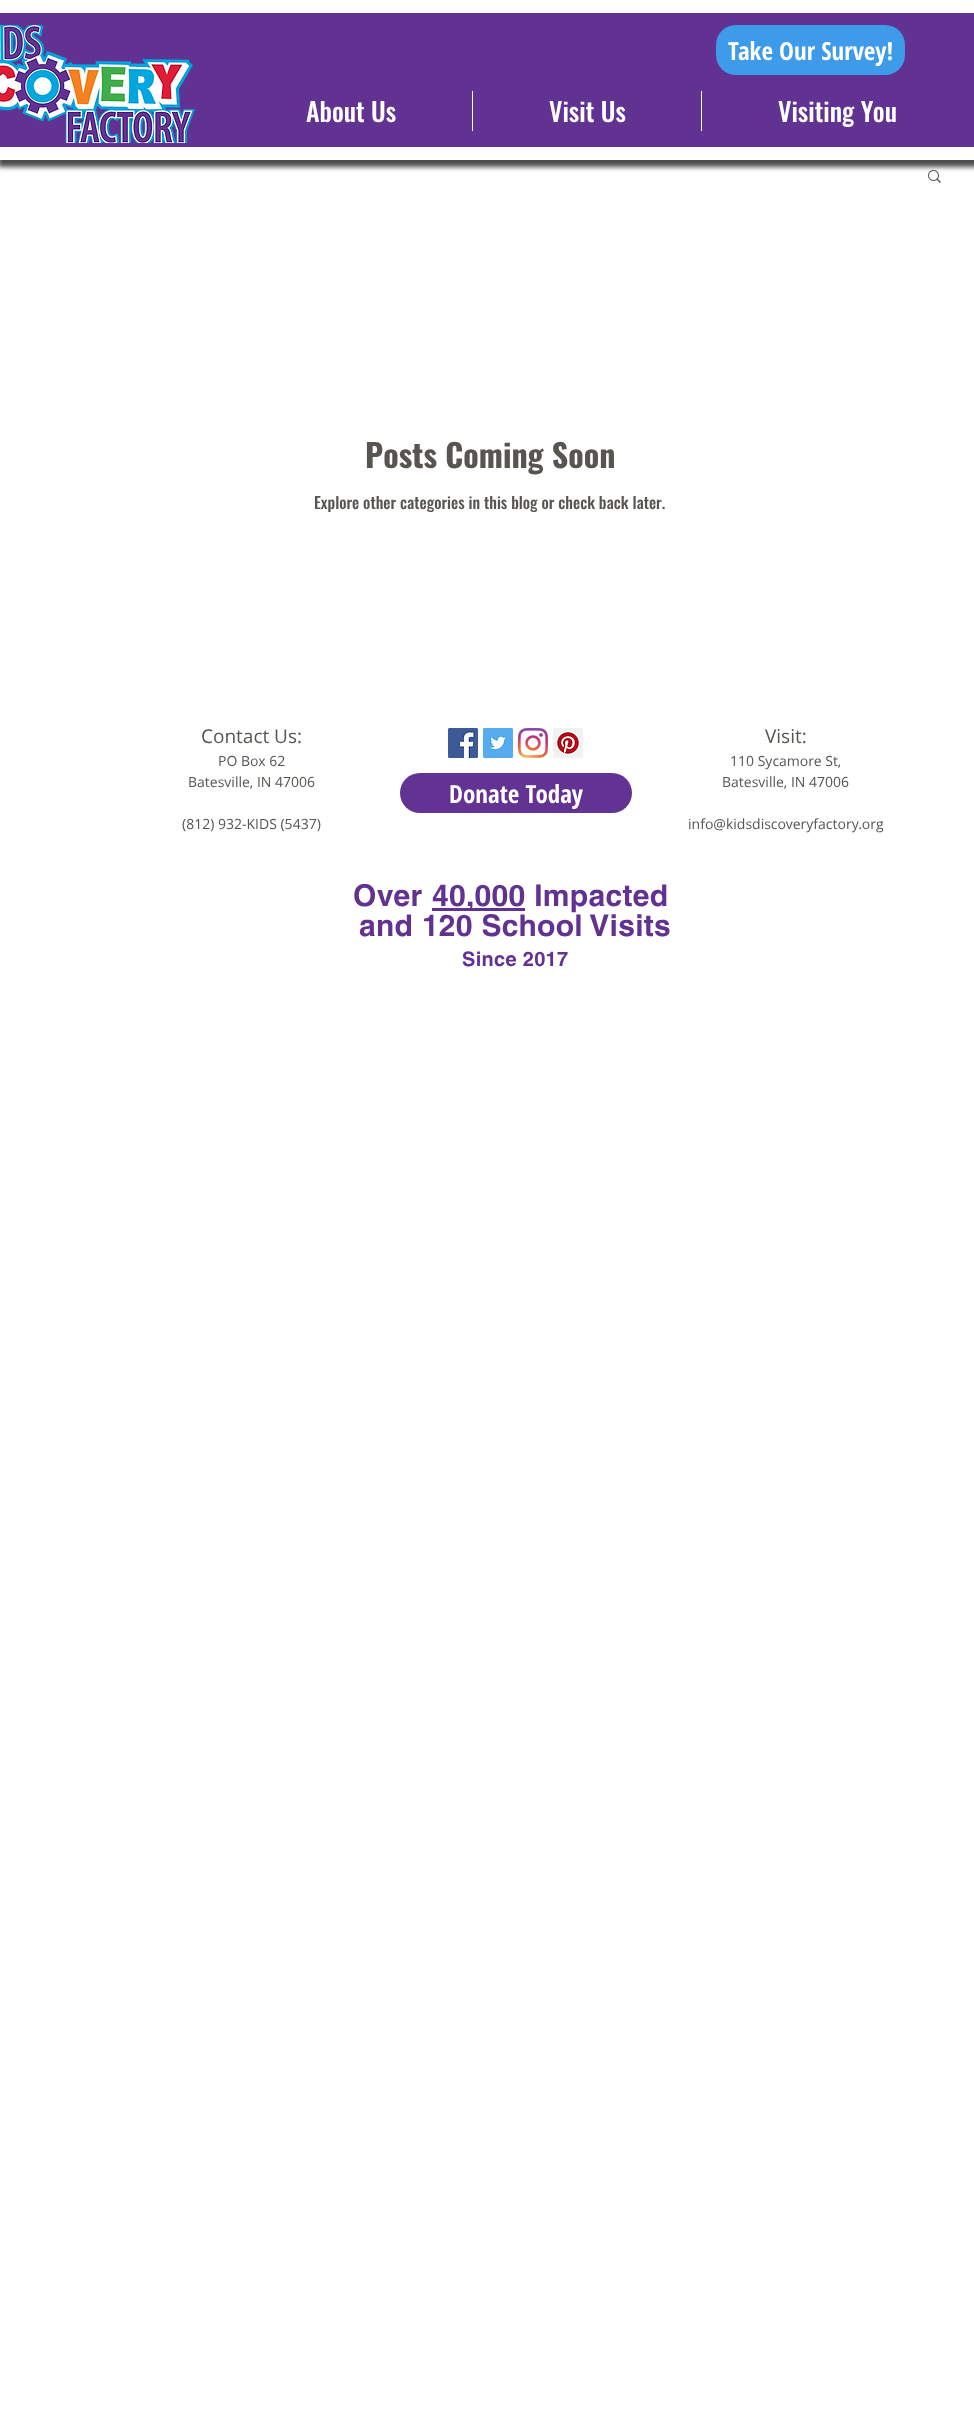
<svg xmlns="http://www.w3.org/2000/svg" xmlns:xlink="http://www.w3.org/1999/xlink" width="974" height="2435" viewBox="0 0 974 2435">
<style>
.cls-1{font:bold 25px Open Sans Condensed;fill:#ffffff}
.cls-2{font:500 26px Oswald;fill:#ffffff}
.cls-3{font:bold 32px Oswald;fill:#585551}
.cls-4{font:500 16px Oswald;fill:#585551}
.cls-5{font:19px Open Sans;fill:#585551}
.cls-6{font:14px Open Sans;fill:#585551}
.cls-7{font:bold 30px helvetica;letter-spacing:0.3px;fill:#623292}
.cls-8{font:bold 20px helvetica;letter-spacing:0.3px;fill:#623292}
</style>
<defs>
<clipPath id="clip1"><rect x="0" y="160" width="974" height="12"/></clipPath>
</defs>
<rect width="100%" height="100%" fill="#ffffff"/>
<image xlink:href="image1.png" x="928" y="170" width="13" height="13"/>
<g clip-path="url(#clip1)">
<rect fill="#000000" fill-opacity="0.7" filter="blur(2.5px)" x="-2" y="3" width="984" height="164"/>
</g>
<rect fill="#623292" x="0" y="13" width="974" height="134"/>
<image xlink:href="image0.png" x="0" y="25" width="195" height="118"/>
<rect fill="#3d9be9" x="716" y="25" width="189" height="50" rx="20"/>
<rect fill="#ffffff" x="472" y="91" width="1" height="40"/>
<rect fill="#ffffff" x="701" y="91" width="1" height="40"/>
<image xlink:href="image2.png" x="448" y="728" width="30" height="30"/>
<image xlink:href="image3.png" x="483" y="728" width="30" height="30"/>
<image xlink:href="image4.png" x="518" y="728" width="30" height="30"/>
<image xlink:href="image5.png" x="553" y="728" width="30" height="30"/>
<rect fill="#633393" x="400" y="773" width="232" height="40" rx="20"/>
<rect fill="#623292" x="432" y="908" width="93" height="3"/>
<text class="cls-1" x="728" y="60">Take Our Survey!</text>
<text class="cls-2" x="306" y="122">About Us</text>
<text class="cls-2" x="549" y="122">Visit Us</text>
<text class="cls-2" x="778" y="122">Visiting You</text>
<text class="cls-3" x="365" y="468">Posts Coming Soon</text>
<text class="cls-4" x="314" y="509">Explore other categories in this blog or check back later.</text>
<text class="cls-5" x="201" y="743">Contact Us:</text>
<text class="cls-6" x="218" y="766">PO Box 62</text>
<text class="cls-6" x="188" y="787">Batesville, IN 47006</text>
<text class="cls-6" x="182" y="829">(812) 932-KIDS (5437)</text>
<text class="cls-5" x="765" y="743">Visit:</text>
<text class="cls-6" x="730" y="766">110 Sycamore St,</text>
<text class="cls-6" x="722" y="787">Batesville, IN 47006</text>
<text class="cls-6" x="688" y="829">info@kidsdiscoveryfactory.org</text>
<text class="cls-1" x="449" y="803">Donate Today</text>
<text class="cls-7" x="353" y="906">Over</text>
<text class="cls-7" x="432" y="906">40,000 Impacted</text>
<text class="cls-7" x="359" y="936">and 120 School Visits</text>
<text class="cls-8" x="462" y="966">Since 2017</text>
</svg>
